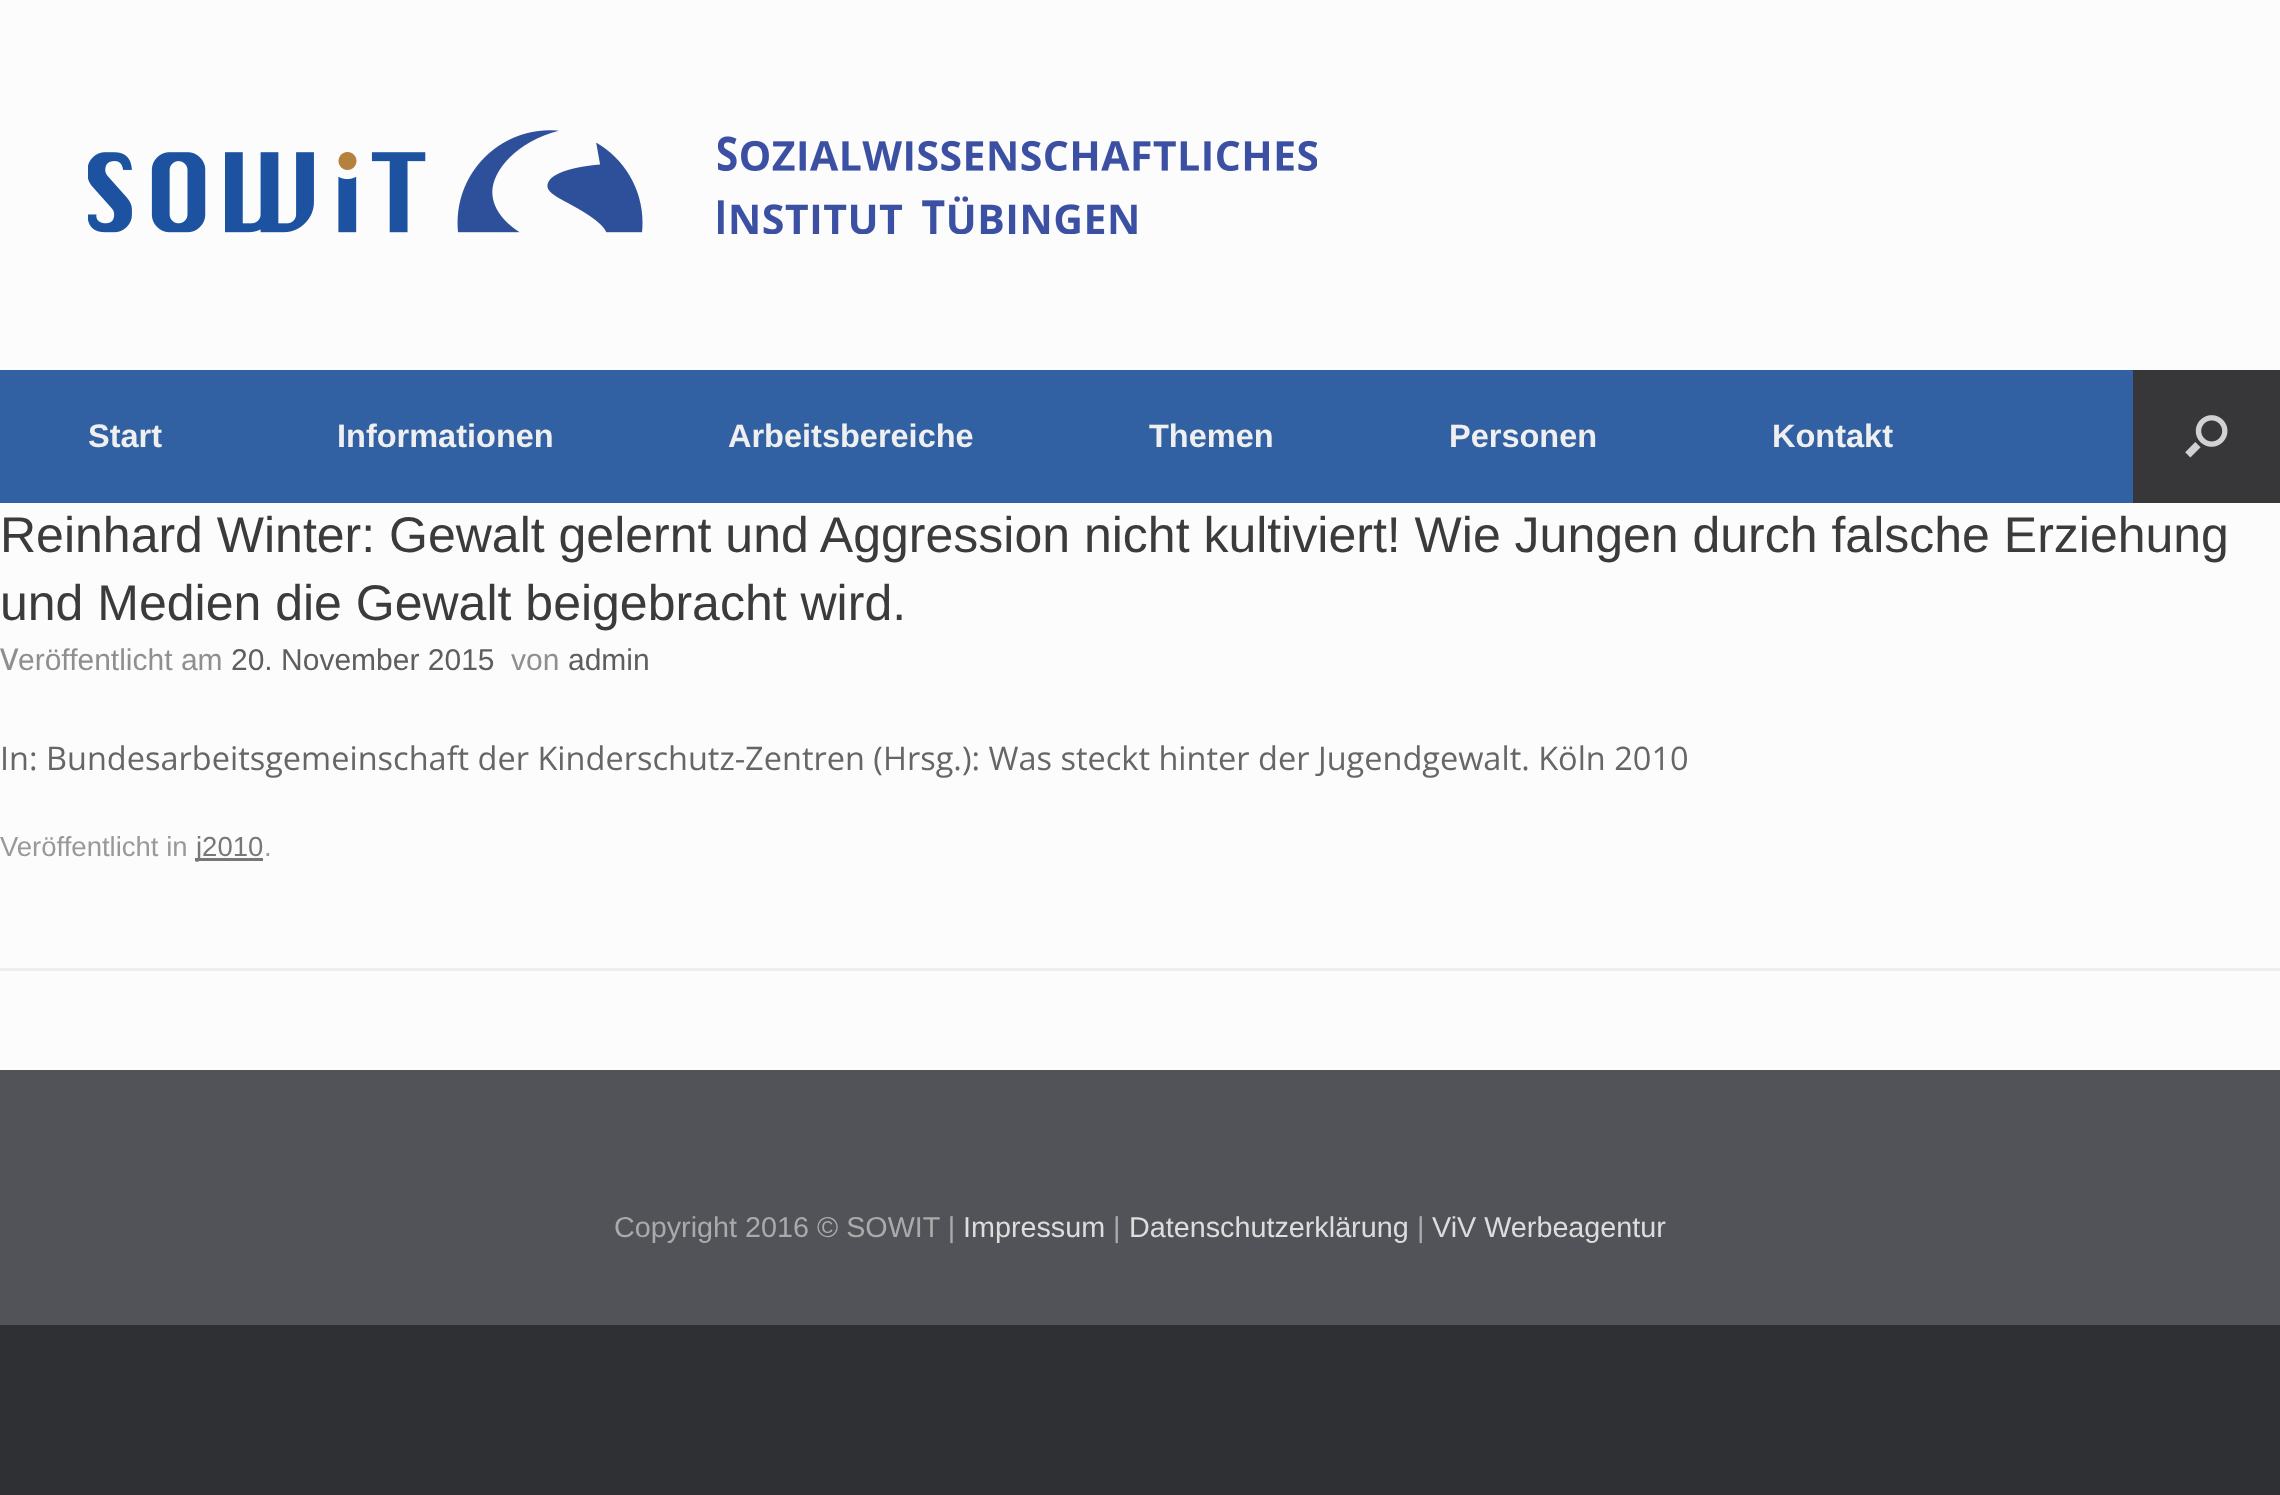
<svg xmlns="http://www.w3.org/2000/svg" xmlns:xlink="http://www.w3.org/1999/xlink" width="2280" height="1495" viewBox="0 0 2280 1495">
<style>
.cls-1{font:bold 32.5px Liberation Sans;fill:#efefef}
.cls-2{font:50px Liberation Sans;fill:#3b3b3b}
.cls-3{font:500 30px Noto Sans;fill:#8f8f8f}
.cls-4{font:30px Liberation Sans;fill:#8f8f8f}
.cls-5{font:30px Liberation Sans;fill:#5e5e5e}
.cls-6{font:32.5px Open Sans;fill:#666666}
.cls-7{font:27.5px Liberation Sans;fill:#999999}
.cls-8{font:27.5px Liberation Sans;fill:#777777}
.cls-9{font:28.75px Liberation Sans;fill:#aaaaaa}
.cls-10{font:28.75px Liberation Sans;fill:#dddddd}
</style>
<rect width="100%" height="100%" fill="#2f3033"/>
<rect fill="#fcfcfc" x="0" y="0" width="2280" height="370"/>
<image xlink:href="image0.png" x="88" y="130" width="555" height="103"/>
<image xlink:href="image1.png" x="718" y="136" width="599" height="98"/>
<rect fill="#3161a2" x="0" y="370" width="2133" height="133"/>
<rect fill="#37373a" x="2133" y="370" width="147" height="133"/>
<image xlink:href="image2.png" x="2185" y="415" width="43" height="43"/>
<rect fill="#fcfcfc" x="0" y="503" width="2280" height="567"/>
<rect fill="#eeeeee" x="0" y="968" width="2280" height="3"/>
<rect fill="#777777" x="195" y="858" width="68" height="3"/>
<rect fill="#525358" x="0" y="1070" width="2280" height="255"/>
<text class="cls-1" x="88" y="447">Start</text>
<text class="cls-1" x="337" y="447">Informationen</text>
<text class="cls-1" x="728" y="447">Arbeitsbereiche</text>
<text class="cls-1" x="1149" y="447">Themen</text>
<text class="cls-1" x="1449" y="447">Personen</text>
<text class="cls-1" x="1772" y="447">Kontakt</text>
<text class="cls-2"><tspan x="0" y="552">Reinhard Winter: Gewalt gelernt und Aggression nicht kultiviert! Wie Jungen durch falsche Erziehung</tspan><tspan x="0" y="620">und Medien die Gewalt beigebracht wird.</tspan></text>
<text class="cls-3" x="0" y="670">V</text>
<text class="cls-4" x="18" y="670">eröffentlicht am</text>
<text class="cls-5" x="231" y="670">20. November 2015</text>
<text class="cls-4" x="511" y="670">von</text>
<text class="cls-5" x="568" y="670">admin</text>
<text class="cls-6" x="0" y="770">In: Bundesarbeitsgemeinschaft der Kinderschutz-Zentren (Hrsg.): Was steckt hinter der Jugendgewalt. Köln 2010</text>
<text class="cls-7" x="0" y="856">Veröffentlicht in</text>
<text class="cls-8" x="196" y="856">j2010</text>
<text class="cls-7" x="264" y="856">.</text>
<text class="cls-9" x="614" y="1237">Copyright 2016 © SOWIT |</text>
<text class="cls-10" x="963" y="1237">Impressum</text>
<text class="cls-9" x="1113" y="1237">|</text>
<text class="cls-10" x="1129" y="1237">Datenschutzerklärung</text>
<text class="cls-9" x="1417" y="1237">|</text>
<text class="cls-10" x="1432" y="1237">ViV Werbeagentur</text>
</svg>
